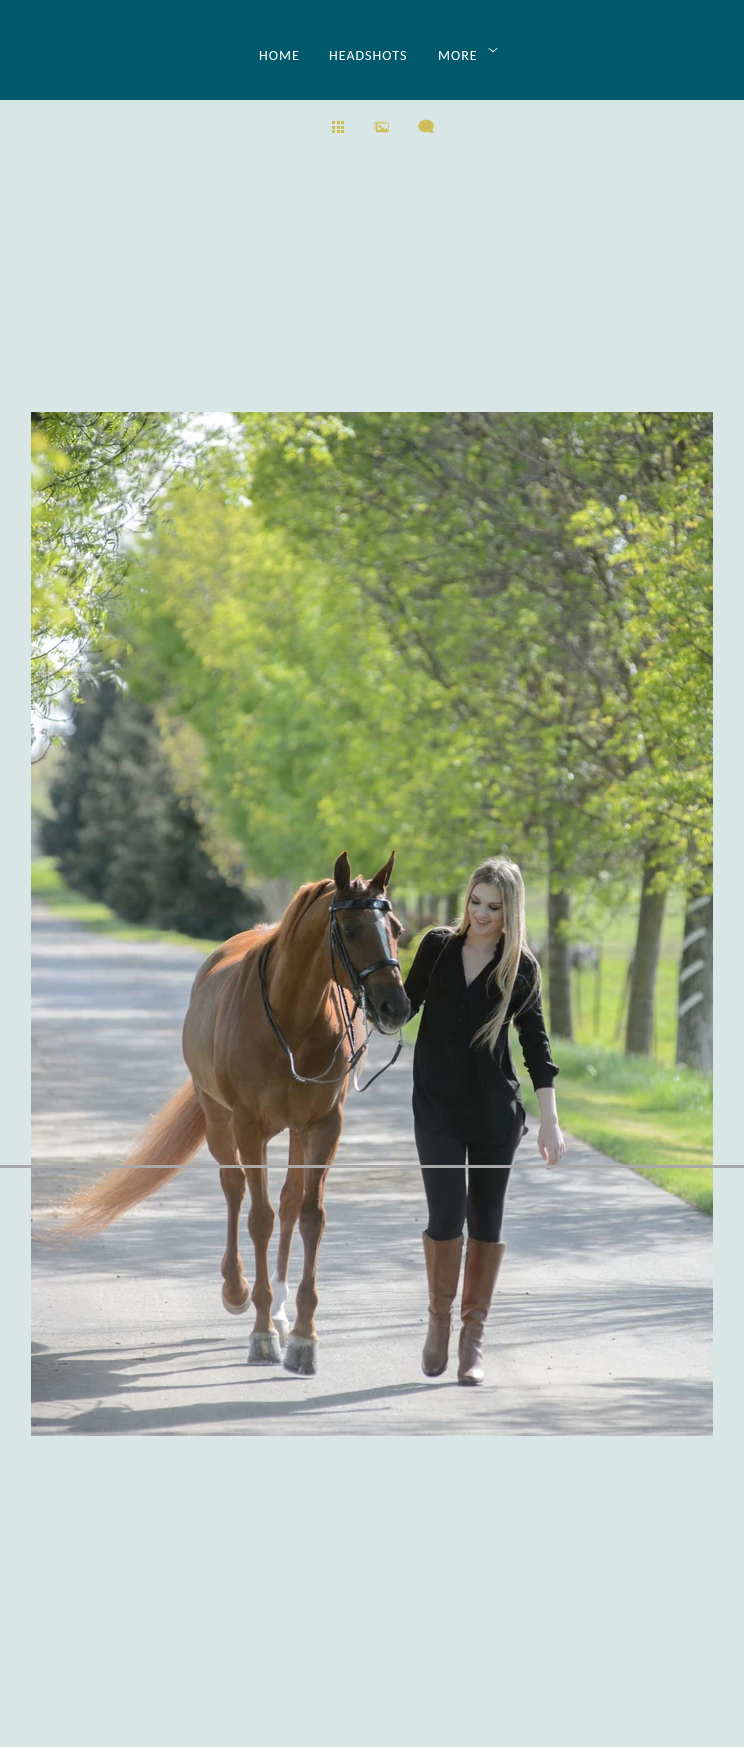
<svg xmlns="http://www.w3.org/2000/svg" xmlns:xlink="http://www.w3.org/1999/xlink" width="744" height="1747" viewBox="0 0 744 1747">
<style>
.cls-1{font:14px Carlito;letter-spacing:1px;fill:#ffffff}
</style>
<rect width="100%" height="100%" fill="#d8e7e6"/>
<rect fill="#01596b" x="0" y="0" width="744" height="100"/>
<image xlink:href="image0.png" x="488" y="47" width="10" height="6"/>
<image xlink:href="image1.png" x="332" y="121" width="12" height="12"/>
<image xlink:href="image2.png" x="374" y="121" width="15" height="12"/>
<image xlink:href="image3.png" x="418" y="119" width="16" height="15"/>
<image xlink:href="image4.png" x="31" y="412" width="682" height="1024"/>
<rect fill="#a9a9a9" x="0" y="1165" width="744" height="3"/>
<text class="cls-1" x="259" y="60">HOME</text>
<text class="cls-1" x="329" y="60">HEADSHOTS</text>
<text class="cls-1" x="438" y="60">MORE</text>
</svg>
